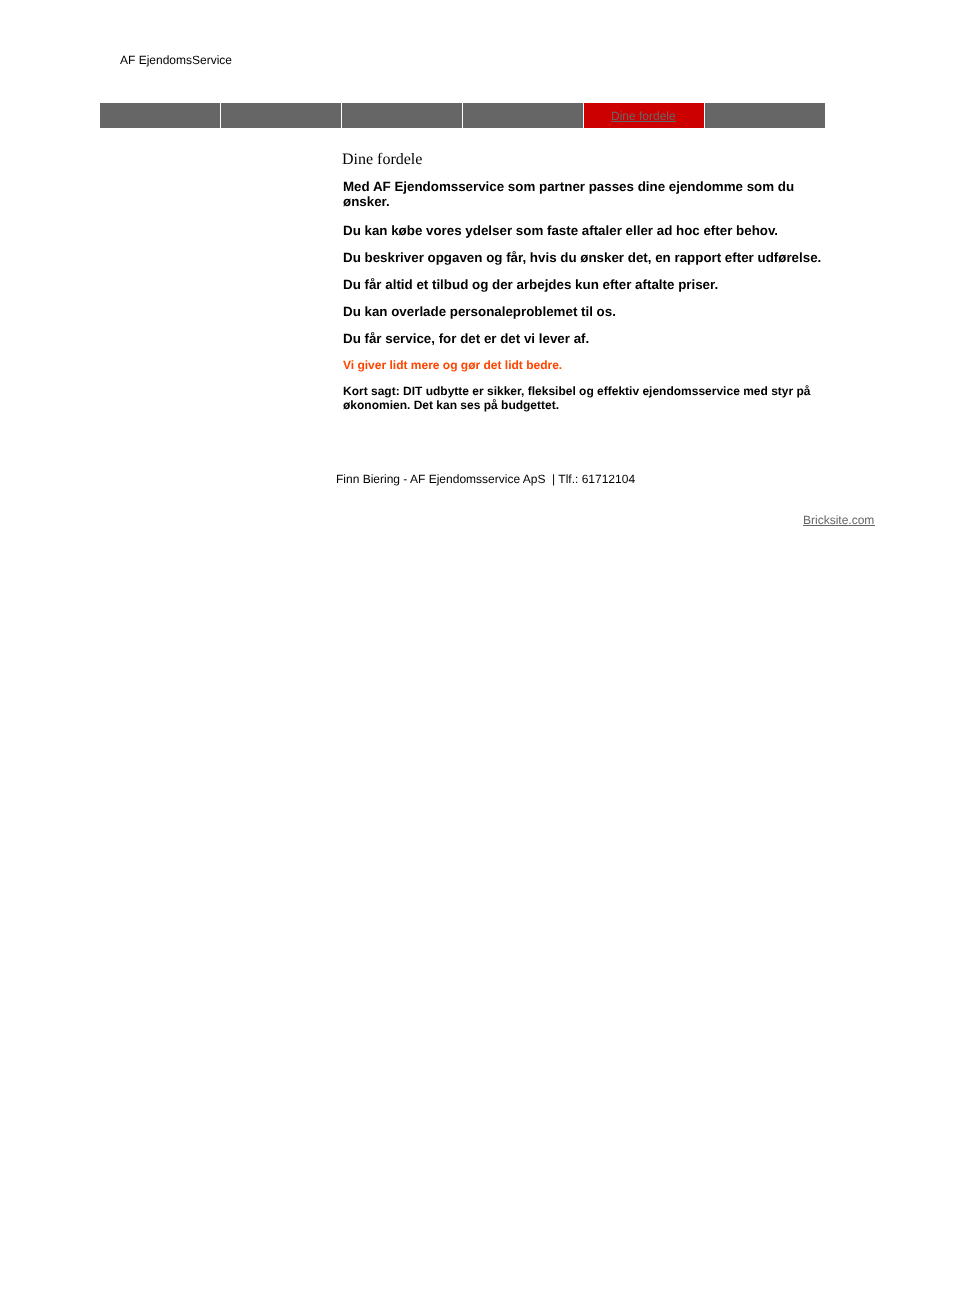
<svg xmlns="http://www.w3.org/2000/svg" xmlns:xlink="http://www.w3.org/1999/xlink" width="974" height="1294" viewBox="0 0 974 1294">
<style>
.cls-1{font:12px Liberation Sans;fill:#000000}
.cls-2{font:12px Liberation Sans;fill:#666666}
.cls-3{font:16px Liberation Serif;fill:#000000}
.cls-4{font:bold 13.35px Liberation Sans;fill:#000000}
.cls-5{font:bold 12px Liberation Sans;fill:#ff4500}
.cls-6{font:bold 12px Liberation Sans;fill:#000000}
</style>
<rect width="100%" height="100%" fill="#ffffff"/>
<rect fill="#666666" x="100" y="103" width="725" height="25"/>
<rect fill="#ffffff" x="220" y="103" width="1" height="25"/>
<rect fill="#ffffff" x="341" y="103" width="1" height="25"/>
<rect fill="#ffffff" x="462" y="103" width="1" height="25"/>
<rect fill="#ffffff" x="583" y="103" width="1" height="25"/>
<rect fill="#cc0000" x="584" y="103" width="120" height="25"/>
<rect fill="#666666" x="611" y="121" width="65" height="1"/>
<rect fill="#ffffff" x="704" y="103" width="1" height="25"/>
<rect fill="#666666" x="803" y="525" width="72" height="1"/>
<text class="cls-1" x="120" y="64">AF EjendomsService</text>
<text class="cls-2" x="611" y="120">Dine fordele</text>
<text class="cls-3" x="342" y="164">Dine fordele</text>
<text class="cls-4"><tspan x="343" y="191">Med AF Ejendomsservice som partner passes dine ejendomme som du</tspan><tspan x="343" y="206">ønsker.</tspan></text>
<text class="cls-4" x="343" y="235">Du kan købe vores ydelser som faste aftaler eller ad hoc efter behov.</text>
<text class="cls-4" x="343" y="262">Du beskriver opgaven og får, hvis du ønsker det, en rapport efter udførelse.</text>
<text class="cls-4" x="343" y="289">Du får altid et tilbud og der arbejdes kun efter aftalte priser.</text>
<text class="cls-4" x="343" y="316">Du kan overlade personaleproblemet til os.</text>
<text class="cls-4" x="343" y="343">Du får service, for det er det vi lever af.</text>
<text class="cls-5" x="343" y="369">Vi giver lidt mere og gør det lidt bedre.</text>
<text class="cls-6"><tspan x="343" y="395">Kort sagt: DIT udbytte er sikker, fleksibel og effektiv ejendomsservice med styr på</tspan><tspan x="343" y="409">økonomien. Det kan ses på budgettet.</tspan></text>
<text class="cls-1" xml:space="preserve" x="336" y="483">Finn Biering - AF Ejendomsservice ApS  | Tlf.: 61712104</text>
<text class="cls-2" x="803" y="524">Bricksite.com</text>
</svg>
